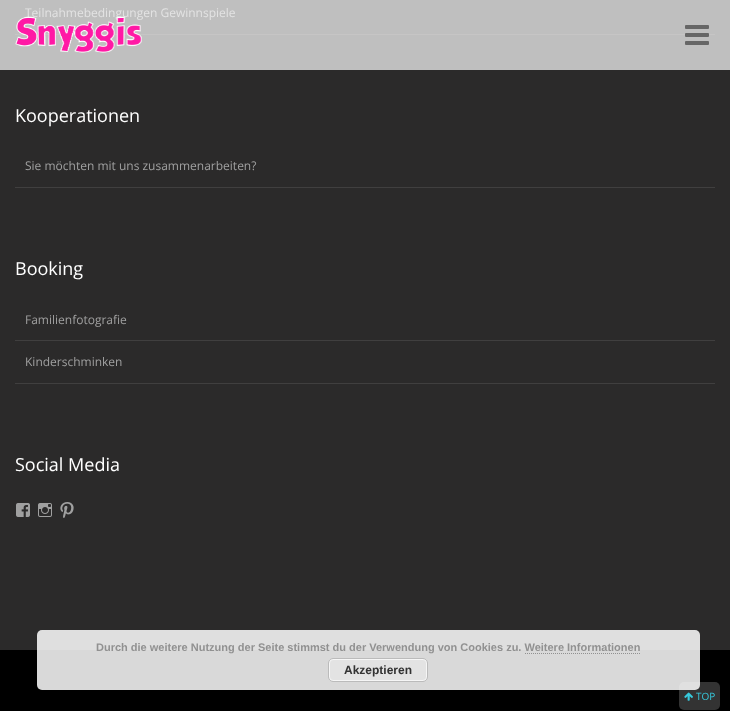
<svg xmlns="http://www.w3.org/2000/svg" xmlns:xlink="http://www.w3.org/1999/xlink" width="730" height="720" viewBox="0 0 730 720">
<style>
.cls-1{font:12px Open Sans;fill:#e3e3e3}
.cls-2{font:18px Open Sans;fill:#ffffff}
.cls-3{font:12px Open Sans;fill:#a0a0a0}
.cls-4{font:bold 11px Liberation Sans;fill:#919191}
.cls-5{font:bold 12px Liberation Sans;fill:#333333}
.cls-6{font:10px Open Sans;fill:#37cadd}
</style>
<rect width="100%" height="100%" fill="#ffffff"/>
<rect fill="#2b2a2a" x="0" y="70" width="730" height="580"/>
<rect fill="#bfbfbf" x="0" y="0" width="730" height="70"/>
<rect fill="#c6c5c5" x="15" y="34" width="700" height="1"/>
<rect fill="#403f3f" x="15" y="187" width="700" height="1"/>
<rect fill="#403f3f" x="15" y="340" width="700" height="1"/>
<rect fill="#403f3f" x="15" y="383" width="700" height="1"/>
<image xlink:href="image0.png" x="16" y="503" width="14" height="14"/>
<image xlink:href="image1.png" x="38" y="503" width="14" height="14"/>
<image xlink:href="image2.png" x="60" y="502" width="14" height="16"/>
<rect fill="#000000" x="0" y="650" width="730" height="61"/>
<image xlink:href="image4.png" x="685" y="25" width="24" height="20"/>
<rect fill="#333333" x="679" y="682" width="41" height="28" rx="5"/>
<rect fill="#ffffff" fill-opacity="0.85" x="37" y="630" width="663" height="60" rx="5"/>
<path fill="none" stroke="#919191" stroke-dasharray="1 1" d="M525 653.5H640"/>
<rect fill="#e3e3e3" x="328" y="658" width="100" height="24" rx="5"/>
<rect fill="none" stroke="#f6f6f6" x="329.5" y="659.5" width="97" height="21" rx="3.5"/>
<rect fill="none" stroke="#bbbbbb" x="328.5" y="658.5" width="99" height="23" rx="4.5"/>
<image xlink:href="image5.png" x="684" y="692" width="9" height="9"/>
<text class="cls-1" x="25" y="17">Teilnahmebedingungen Gewinnspiele</text>
<text class="cls-2" x="15" y="122">Kooperationen</text>
<text class="cls-3" x="25" y="170">Sie möchten mit uns zusammenarbeiten?</text>
<text class="cls-2" x="15" y="275">Booking</text>
<text class="cls-3" x="25" y="324">Familienfotografie</text>
<text class="cls-3" x="25" y="366">Kinderschminken</text>
<text class="cls-2" x="15" y="471">Social Media</text>
<image xlink:href="image3.png" x="15" y="16" width="127" height="37"/>
<text class="cls-4" x="96" y="651">Durch die weitere Nutzung der Seite stimmst du der Verwendung von Cookies zu. Weitere Informationen</text>
<text class="cls-5" x="344" y="674">Akzeptieren</text>
<text class="cls-6" x="696" y="700">TOP</text>
</svg>
